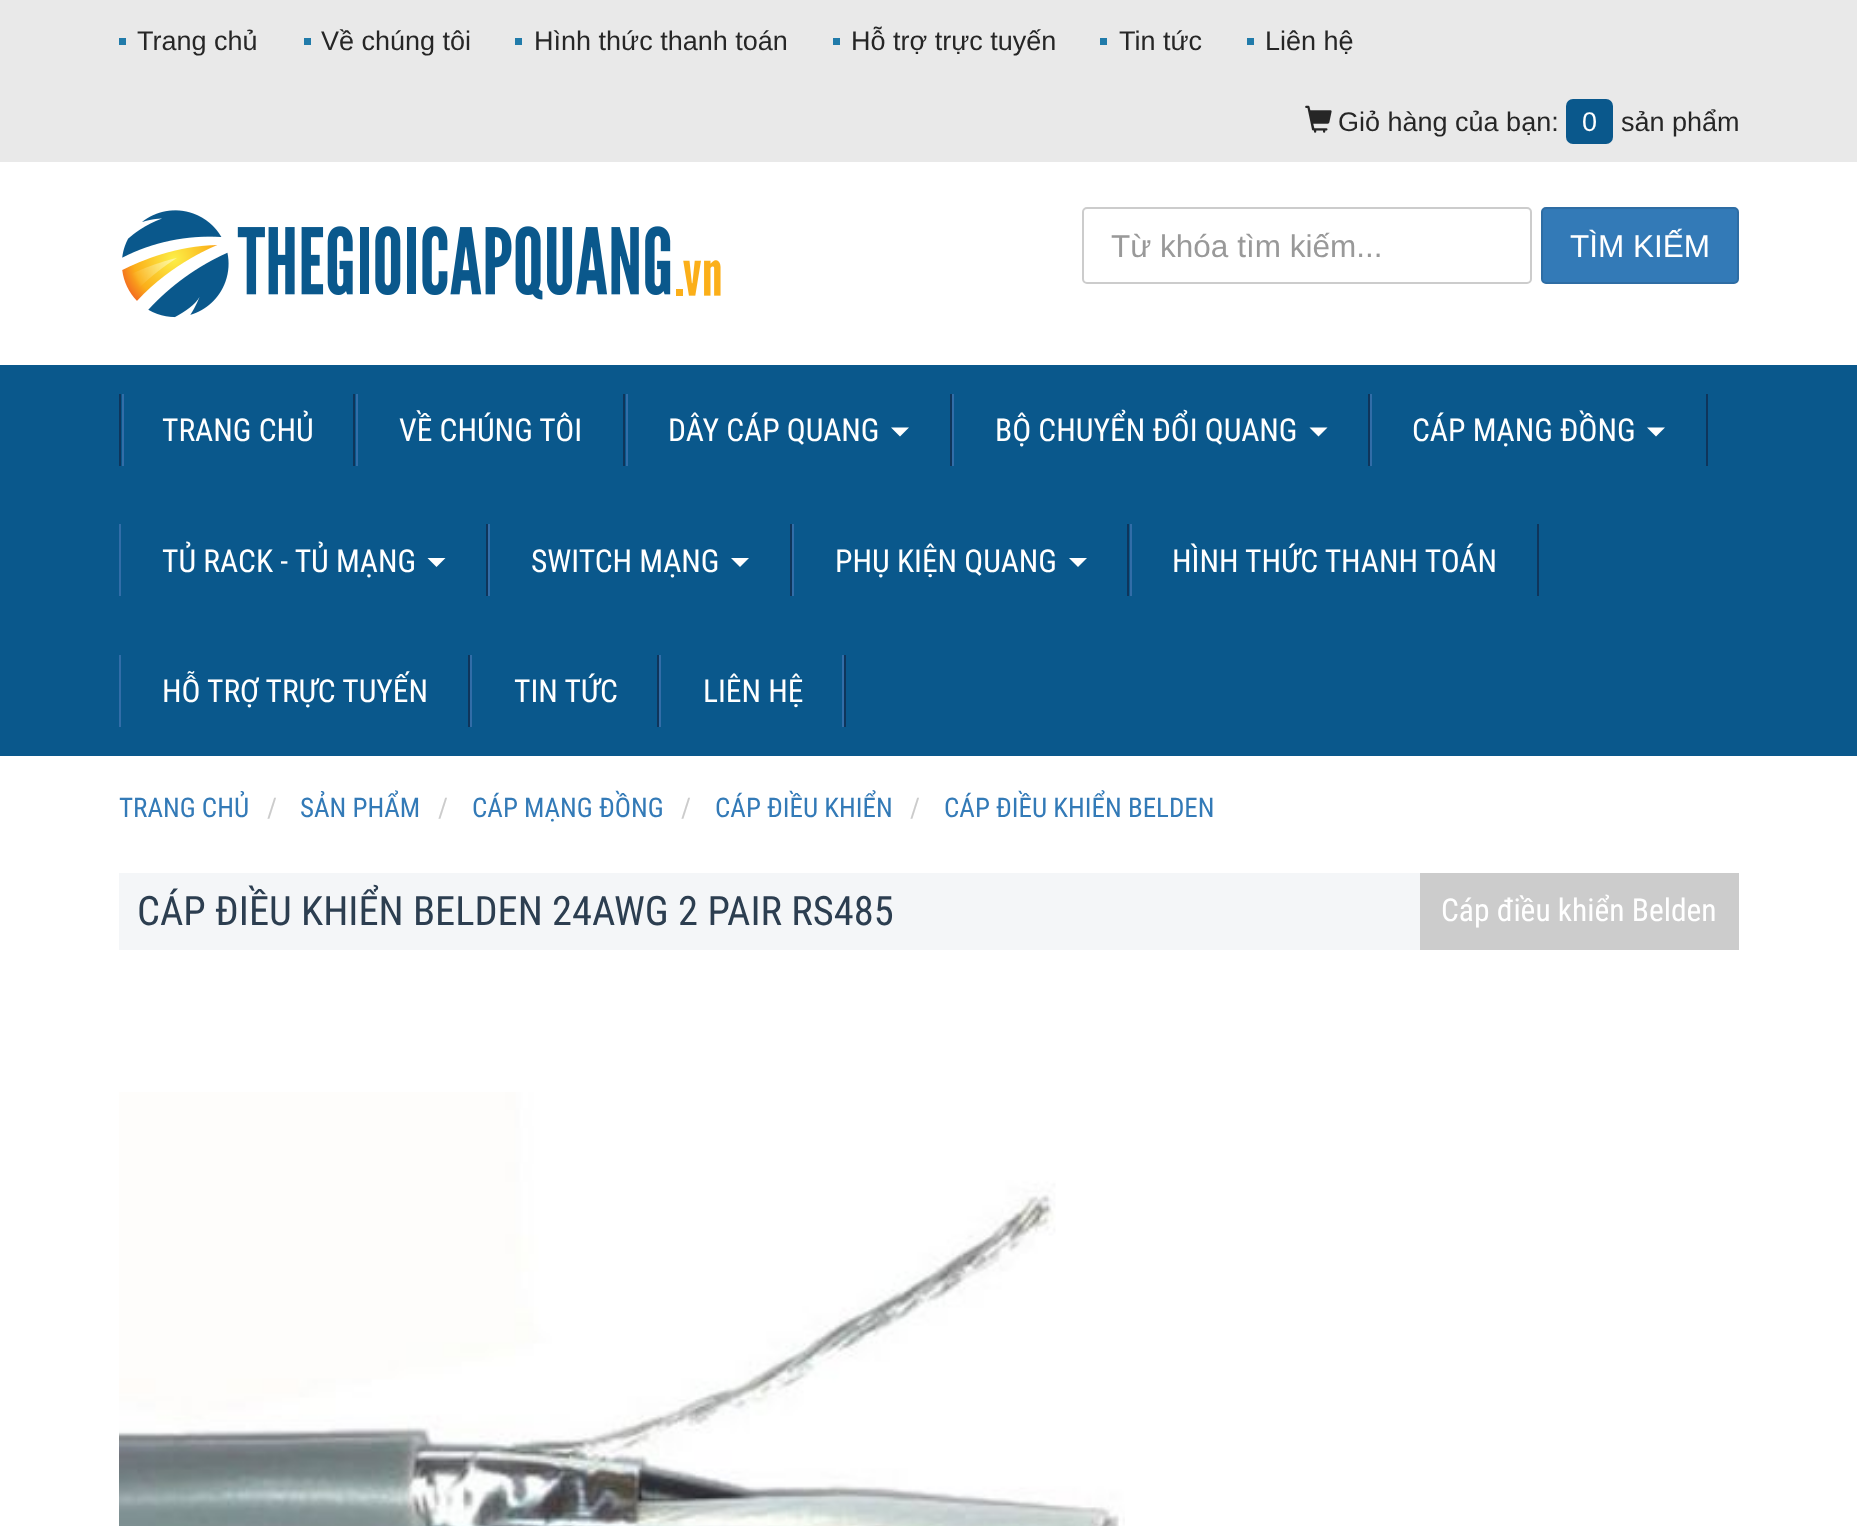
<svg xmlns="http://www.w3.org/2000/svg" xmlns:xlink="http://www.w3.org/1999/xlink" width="1857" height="1526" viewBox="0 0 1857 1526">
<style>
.cls-1{font:27px Liberation Sans;fill:#262626}
.cls-2{font:27px Liberation Sans;fill:#ffffff}
.cls-3{font:31.5px Liberation Sans;fill:#999999}
.cls-4{font:31.5px Liberation Sans;fill:#ffffff}
.cls-5{font:31.5px Roboto Condensed;fill:#ffffff}
.cls-6{font:27px Roboto Condensed;fill:#337ab7}
.cls-7{font:27px Roboto Condensed;fill:#cccccc}
.cls-8{font:40.5px Roboto Condensed;fill:#2c3e50}
</style>
<rect width="100%" height="100%" fill="#ffffff"/>
<rect fill="#e9e9e9" x="0" y="0" width="1857" height="162"/>
<rect fill="#217baa" x="119" y="38" width="7" height="7"/>
<rect fill="#217baa" x="304" y="38" width="7" height="7"/>
<rect fill="#217baa" x="515" y="38" width="7" height="7"/>
<rect fill="#217baa" x="833" y="38" width="7" height="7"/>
<rect fill="#217baa" x="1100" y="38" width="7" height="7"/>
<rect fill="#217baa" x="1247" y="38" width="7" height="7"/>
<image xlink:href="image0.png" x="1305" y="105" width="27" height="28"/>
<rect fill="#0a588c" x="1566" y="99" width="47" height="45" rx="7"/>
<image xlink:href="image1.png" x="122" y="210" width="599" height="108"/>
<rect fill="none" stroke="#cccccc" stroke-width="2" x="1083" y="208" width="448" height="75" rx="4"/>
<rect fill="#337ab7" stroke="#2e6da4" stroke-width="2" x="1542" y="208" width="196" height="75" rx="4"/>
<rect fill="#0a588c" x="0" y="365" width="1857" height="391"/>
<rect fill="#0f355b" x="353" y="394" width="2" height="72"/>
<rect fill="#0f355b" x="119" y="394" width="2" height="72"/>
<rect fill="#326da8" x="122" y="394" width="2" height="72"/>
<rect fill="#0f355b" x="623" y="394" width="2" height="72"/>
<rect fill="#326da8" x="356" y="394" width="2" height="72"/>
<rect fill="#0f355b" x="950" y="394" width="2" height="72"/>
<rect fill="#326da8" x="626" y="394" width="2" height="72"/>
<path fill="#ffffff" d="M891 427.5H909L900 436.5Z"/>
<rect fill="#0f355b" x="1368" y="394" width="2" height="72"/>
<rect fill="#326da8" x="952" y="394" width="2" height="72"/>
<path fill="#ffffff" d="M1309.5 427.5H1327.5L1318.5 436.5Z"/>
<rect fill="#0f355b" x="1706" y="394" width="2" height="72"/>
<rect fill="#326da8" x="1370" y="394" width="2" height="72"/>
<path fill="#ffffff" d="M1647 427.5H1665L1656 436.5Z"/>
<rect fill="#0f355b" x="486" y="524" width="2" height="72"/>
<rect fill="#326da8" x="119" y="524" width="2" height="72"/>
<path fill="#ffffff" d="M427.5 558H445.5L436.5 567Z"/>
<rect fill="#0f355b" x="790" y="524" width="2" height="72"/>
<rect fill="#326da8" x="488" y="524" width="2" height="72"/>
<path fill="#ffffff" d="M731 558H749L740 567Z"/>
<rect fill="#0f355b" x="1127" y="524" width="2" height="72"/>
<rect fill="#326da8" x="792" y="524" width="2" height="72"/>
<path fill="#ffffff" d="M1069 558H1087L1078 567Z"/>
<rect fill="#0f355b" x="1537" y="524" width="2" height="72"/>
<rect fill="#326da8" x="1130" y="524" width="2" height="72"/>
<rect fill="#0f355b" x="468" y="655" width="2" height="72"/>
<rect fill="#326da8" x="119" y="655" width="2" height="72"/>
<rect fill="#0f355b" x="657" y="655" width="2" height="72"/>
<rect fill="#326da8" x="470" y="655" width="2" height="72"/>
<rect fill="#0f355b" x="844" y="655" width="2" height="72"/>
<rect fill="#326da8" x="659" y="655" width="2" height="72"/>
<rect fill="#326da8" x="842" y="655" width="2" height="72"/>
<rect fill="#f4f6f8" x="119" y="873" width="1301" height="77"/>
<rect fill="#cccccc" x="1420" y="873" width="319" height="77"/>
<image xlink:href="image2.png" x="119" y="1092" width="1006" height="434"/>
<text class="cls-1" x="137" y="50">Trang chủ</text>
<text class="cls-1" x="321" y="50">Về chúng tôi</text>
<text class="cls-1" x="534" y="50">Hình thức thanh toán</text>
<text class="cls-1" x="851" y="50">Hỗ trợ trực tuyến</text>
<text class="cls-1" x="1119" y="50">Tin tức</text>
<text class="cls-1" x="1265" y="50">Liên hệ</text>
<text class="cls-1" x="1338" y="131">Giỏ hàng của bạn:</text>
<text class="cls-2" x="1582" y="131">0</text>
<text class="cls-1" x="1621" y="131">sản phẩm</text>
<text class="cls-3" x="1111" y="257">Từ khóa tìm kiếm...</text>
<text class="cls-4" x="1570" y="257">TÌM KIẾM</text>
<text class="cls-5" x="162" y="441">TRANG CHỦ</text>
<text class="cls-5" x="399" y="441">VỀ CHÚNG TÔI</text>
<text class="cls-5" x="668" y="441">DÂY CÁP QUANG</text>
<text class="cls-5" x="995" y="441">BỘ CHUYỂN ĐỔI QUANG</text>
<text class="cls-5" x="1412" y="441">CÁP MẠNG ĐỒNG</text>
<text class="cls-5" x="162" y="572">TỦ RACK - TỦ MẠNG</text>
<text class="cls-5" x="531" y="572">SWITCH MẠNG</text>
<text class="cls-5" x="835" y="572">PHỤ KIỆN QUANG</text>
<text class="cls-5" x="1172" y="572">HÌNH THỨC THANH TOÁN</text>
<text class="cls-5" x="162" y="702">HỖ TRỢ TRỰC TUYẾN</text>
<text class="cls-5" x="514" y="702">TIN TỨC</text>
<text class="cls-5" x="703" y="702">LIÊN HỆ</text>
<text class="cls-6" x="119" y="817">TRANG CHỦ</text>
<text class="cls-7" x="267" y="817">/</text>
<text class="cls-6" x="300" y="817">SẢN PHẨM</text>
<text class="cls-7" x="438" y="817">/</text>
<text class="cls-6" x="472" y="817">CÁP MẠNG ĐỒNG</text>
<text class="cls-7" x="681" y="817">/</text>
<text class="cls-6" x="715" y="817">CÁP ĐIỀU KHIỂN</text>
<text class="cls-7" x="910" y="817">/</text>
<text class="cls-6" x="944" y="817">CÁP ĐIỀU KHIỂN BELDEN</text>
<text class="cls-8" x="137" y="925">CÁP ĐIỀU KHIỂN BELDEN 24AWG 2 PAIR RS485</text>
<text class="cls-5" x="1441" y="921">Cáp điều khiển Belden</text>
</svg>
